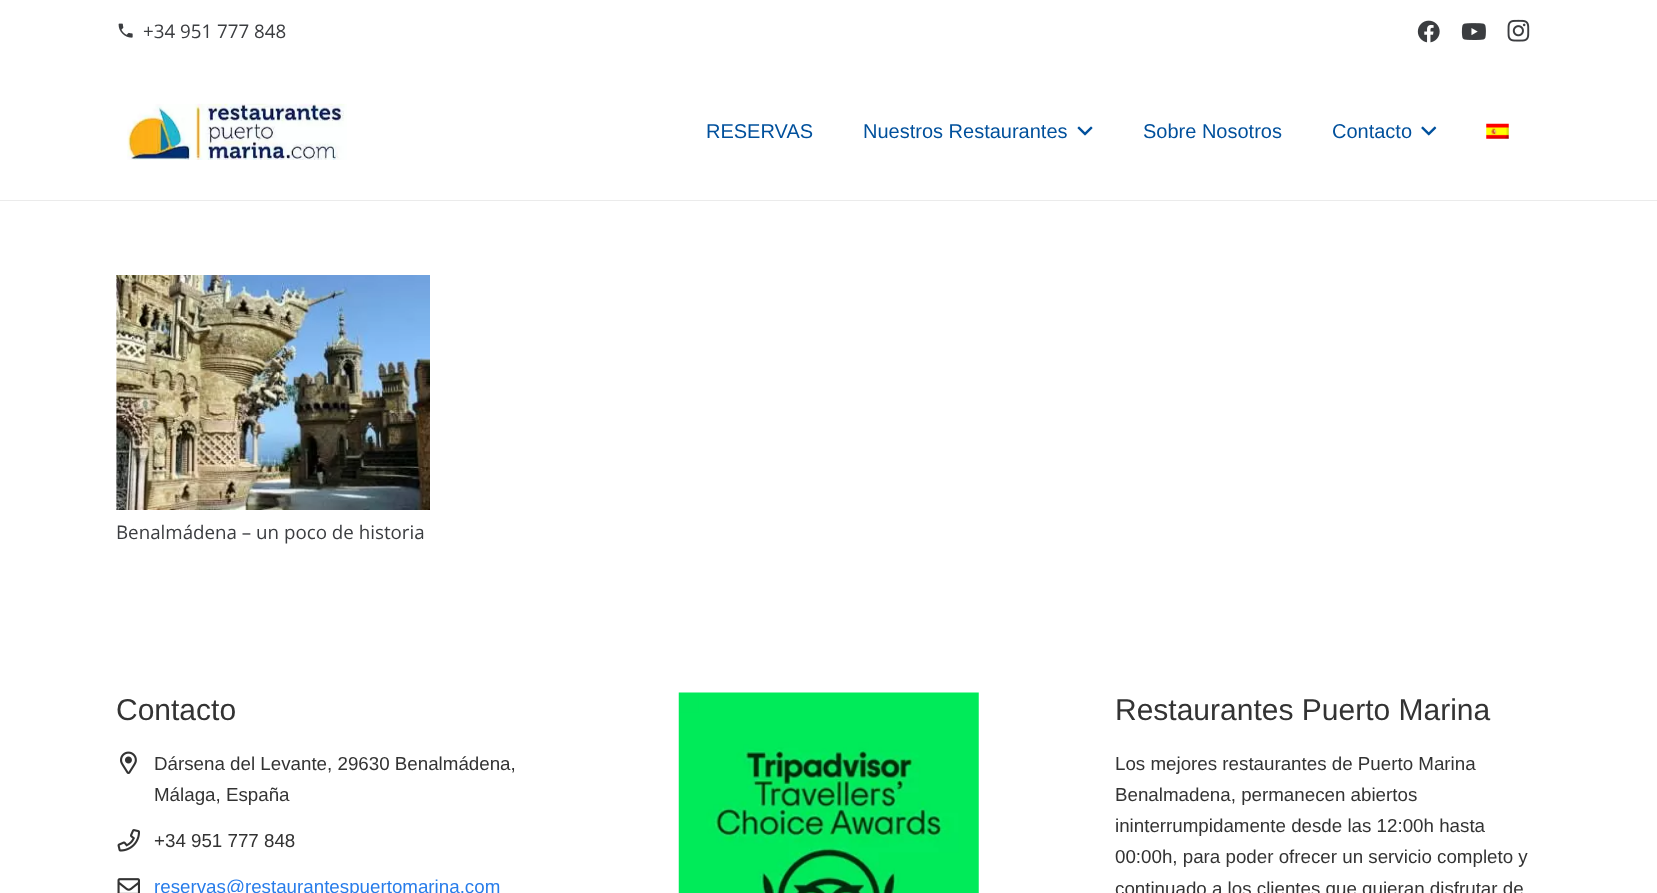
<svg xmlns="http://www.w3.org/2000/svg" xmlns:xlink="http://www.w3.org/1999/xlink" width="1657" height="893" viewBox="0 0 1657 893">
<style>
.cls-1{font:18.75px Open Sans;fill:#3b3d40}
.cls-2{font:20px Liberation Sans;fill:#00509c}
.cls-3{font:30px Liberation Sans;fill:#333333}
.cls-4{font:18.75px Liberation Sans;fill:#333333}
.cls-5{font:18.75px Liberation Sans;fill:#277cea}
</style>
<rect width="100%" height="100%" fill="#ffffff"/>
<image xlink:href="image0.png" x="118" y="23" width="15" height="15"/>
<image xlink:href="image1.png" x="1417" y="20" width="23" height="23"/>
<image xlink:href="image2.png" x="1461" y="23" width="25" height="17"/>
<image xlink:href="image3.png" x="1507" y="19" width="23" height="23"/>
<path fill="#ebebeb" d="M0 200V201H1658V64V200Z"/>
<image xlink:href="image4.png" x="127" y="103" width="220" height="57"/>
<image xlink:href="image5.png" x="1077" y="126" width="16" height="10"/>
<image xlink:href="image6.png" x="1421" y="126" width="16" height="10"/>
<image xlink:href="image7.png" x="1486" y="123" width="23" height="16"/>
<image xlink:href="image8.png" x="116" y="275" width="314" height="235"/>
<image xlink:href="image9.png" x="120" y="751" width="17" height="23"/>
<image xlink:href="image10.png" x="117" y="829" width="23" height="23"/>
<image xlink:href="image11.png" x="117" y="878" width="23" height="15"/>
<image xlink:href="image12.png" x="678" y="692" width="301" height="201"/>
<text class="cls-1" x="143" y="38">+34 951 777 848</text>
<text class="cls-2" x="706" y="138">RESERVAS</text>
<text class="cls-2" x="863" y="138">Nuestros Restaurantes</text>
<text class="cls-2" x="1143" y="138">Sobre Nosotros</text>
<text class="cls-2" x="1332" y="138">Contacto</text>
<text class="cls-1" x="116" y="539">Benalmádena – un poco de historia</text>
<text class="cls-3" x="116" y="720">Contacto</text>
<text class="cls-4"><tspan x="154" y="770">Dársena del Levante, 29630 Benalmádena,</tspan><tspan x="154" y="801">Málaga, España</tspan></text>
<text class="cls-4" x="154" y="847">+34 951 777 848</text>
<text class="cls-5" x="154" y="893">reservas@restaurantespuertomarina.com</text>
<text class="cls-3" x="1115" y="720">Restaurantes Puerto Marina</text>
<text class="cls-4"><tspan x="1115" y="770">Los mejores restaurantes de Puerto Marina</tspan><tspan x="1115" y="801">Benalmadena, permanecen abiertos</tspan><tspan x="1115" y="832">ininterrumpidamente desde las 12:00h hasta</tspan><tspan x="1115" y="863">00:00h, para poder ofrecer un servicio completo y</tspan><tspan x="1115" y="895">continuado a los clientes que quieran disfrutar de</tspan></text>
</svg>
